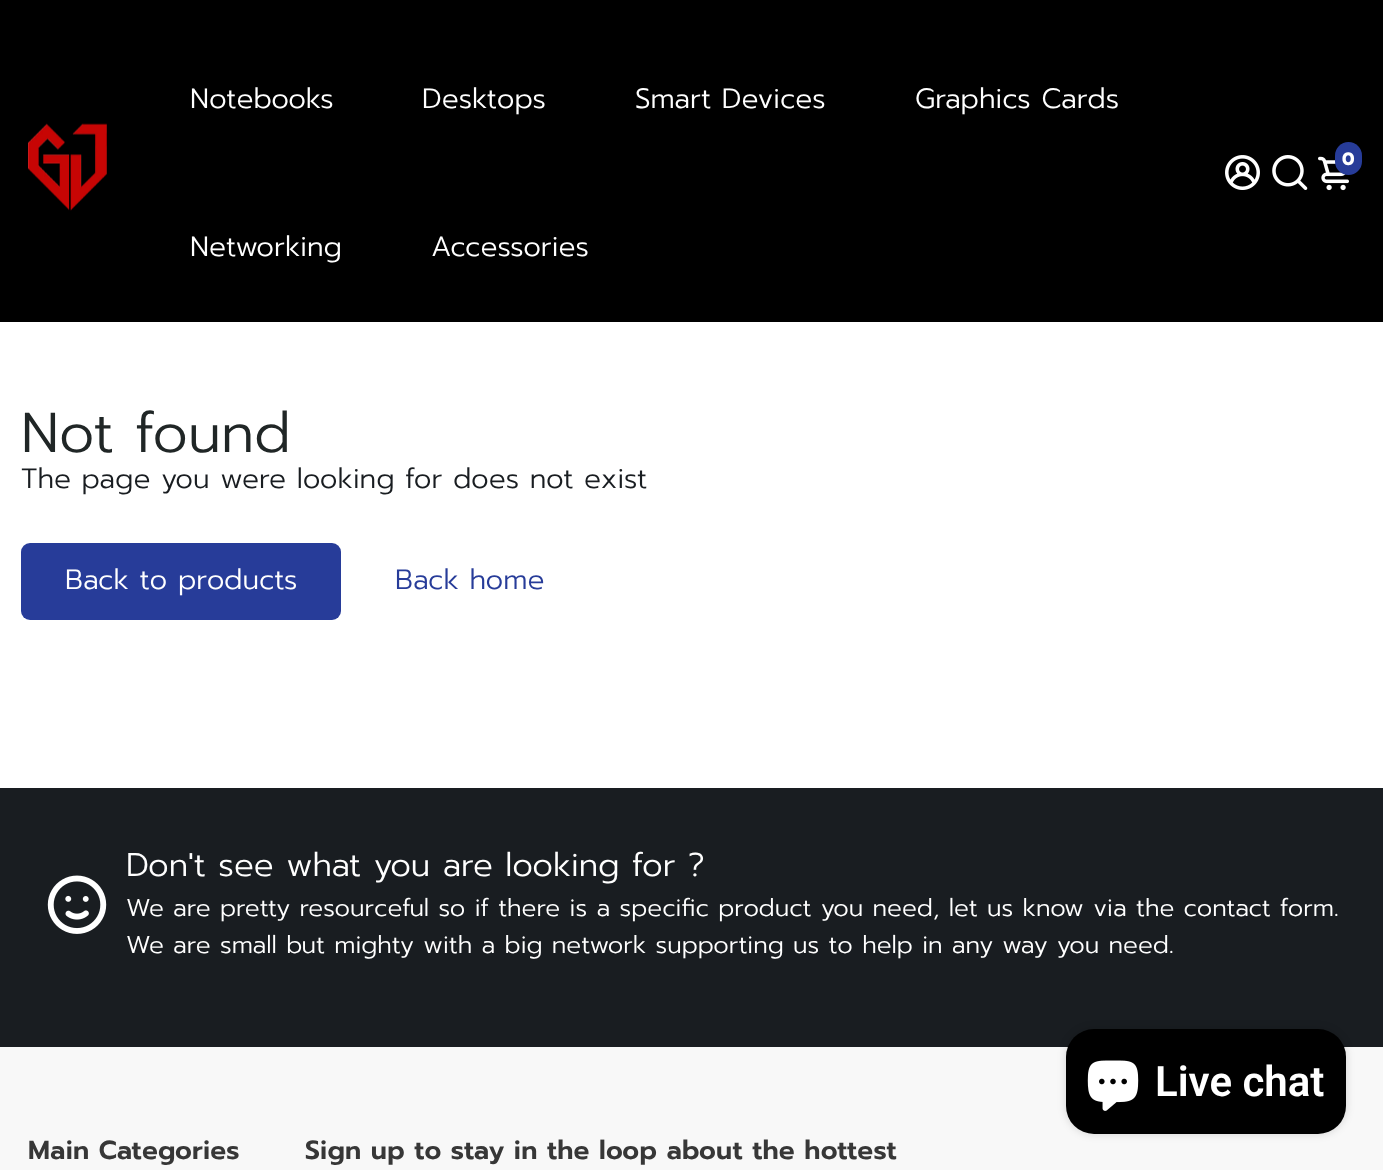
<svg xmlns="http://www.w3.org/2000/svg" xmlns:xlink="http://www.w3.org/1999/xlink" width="1383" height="1170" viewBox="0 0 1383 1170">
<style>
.cls-1{font:300 28px Prompt;fill:#ffffff}
.cls-2{font:bold 18px Prompt;fill:#ffffff}
.cls-3{font:300 56px Prompt;fill:#202626}
.cls-4{font:300 28px Prompt;fill:#191d21}
.cls-5{font:300 28px Prompt;fill:#273c99}
.cls-6{font:300 32.75px Prompt;fill:#ffffff}
.cls-7{font:300 24.5px Prompt;fill:#ffffff}
.cls-8{font:600 26.25px Prompt;letter-spacing:0.2px;fill:#373737}
.cls-9{font:600 42px Roboto;fill:#ffffff}
</style>
<rect width="100%" height="100%" fill="#ffffff"/>
<rect fill="#000000" x="0" y="0" width="1383" height="322"/>
<image xlink:href="image0.png" x="28" y="123" width="79" height="88"/>
<image xlink:href="image1.png" x="1225" y="155" width="35" height="35"/>
<image xlink:href="image2.png" x="1272" y="155" width="36" height="35"/>
<image xlink:href="image3.png" x="1318" y="156" width="31" height="35"/>
<rect fill="#273c99" x="1335" y="142" width="27" height="33" rx="13.5"/>
<rect fill="#273c99" x="21" y="543" width="320" height="77" rx="9"/>
<rect fill="#191d21" x="0" y="788" width="1383" height="259"/>
<image xlink:href="image4.png" x="47" y="875" width="60" height="59"/>
<rect fill="#f8f8f8" x="0" y="1047" width="1383" height="123"/>
<rect fill="#000000" fill-opacity="0.15" filter="blur(4.5px)" x="1066" y="1029" width="280" height="105" rx="28"/>
<rect fill="#000000" x="1066" y="1029" width="280" height="105" rx="28"/>
<image xlink:href="image5.png" x="1087" y="1060" width="52" height="51"/>
<text class="cls-1" x="190" y="108">Notebooks</text>
<text class="cls-1" x="422" y="108">Desktops</text>
<text class="cls-1" x="635" y="108">Smart Devices</text>
<text class="cls-1" x="915" y="108">Graphics Cards</text>
<text class="cls-1" x="190" y="256">Networking</text>
<text class="cls-1" x="431" y="256">Accessories</text>
<text class="cls-2" x="1342" y="165">0</text>
<text class="cls-3" x="21" y="452">Not found</text>
<text class="cls-4" x="21" y="488">The page you were looking for does not exist</text>
<text class="cls-1" x="65" y="589">Back to products</text>
<text class="cls-5" x="395" y="589">Back home</text>
<text class="cls-6" x="126" y="876">Don't see what you are looking for ?</text>
<text class="cls-7"><tspan x="126" y="916">We are pretty resourceful so if there is a specific product you need, let us know via the contact form.</tspan><tspan x="126" y="953">We are small but mighty with a big network supporting us to help in any way you need.</tspan></text>
<text class="cls-8" x="28" y="1159">Main Categories</text>
<text class="cls-8" x="305" y="1159">Sign up to stay in the loop about the hottest</text>
<text class="cls-9" x="1155" y="1096">Live chat</text>
</svg>
